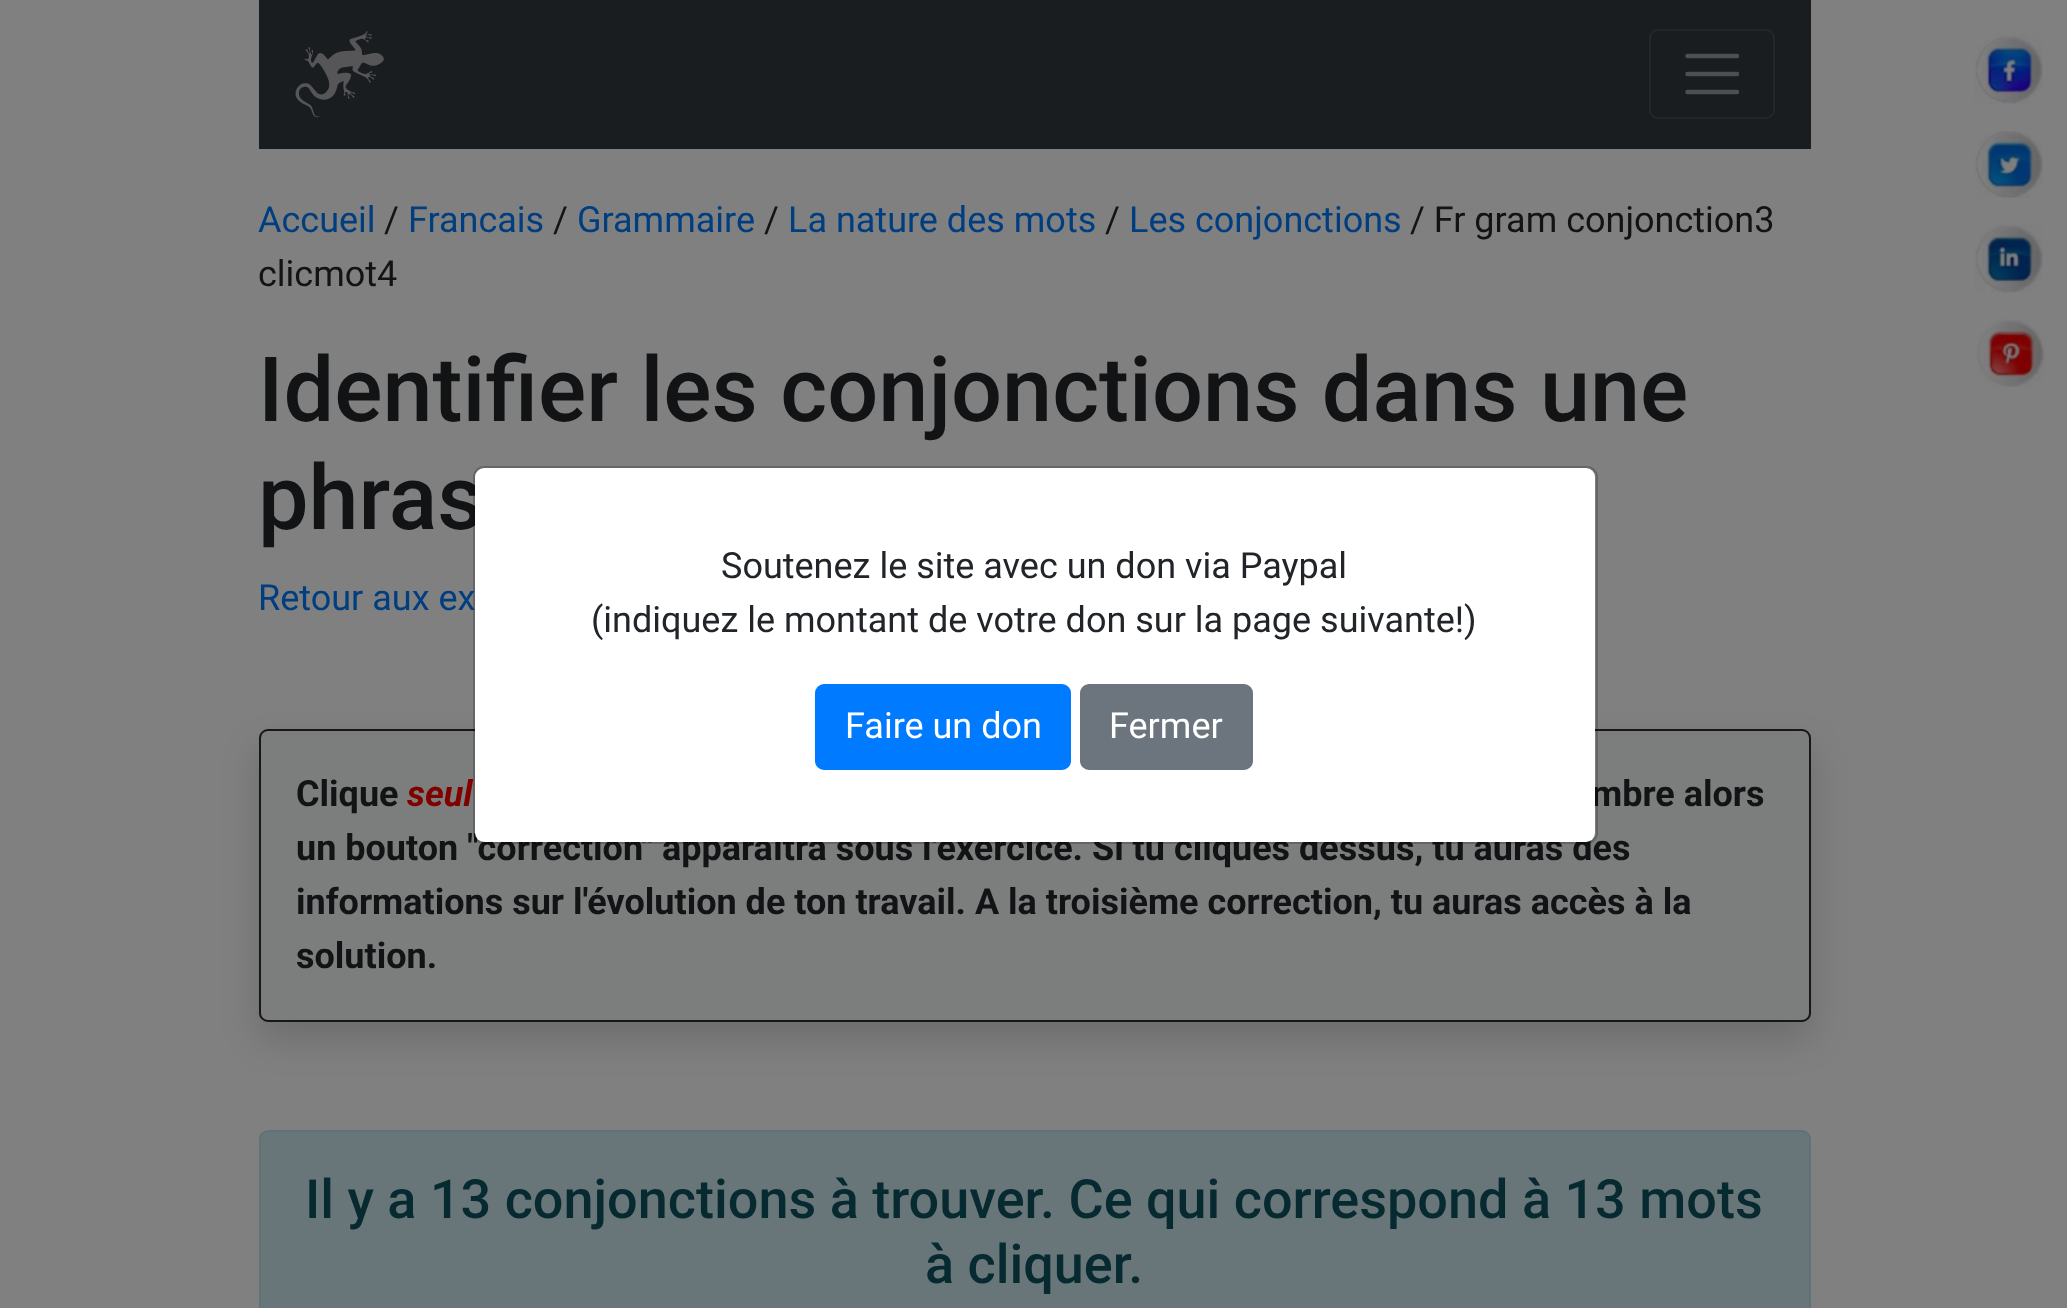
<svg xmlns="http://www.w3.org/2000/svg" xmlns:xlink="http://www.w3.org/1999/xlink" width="2067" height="1308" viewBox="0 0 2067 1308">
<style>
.cls-1{font:36px Roboto;fill:#003e80}
.cls-2{font:36px Roboto;fill:#111315}
.cls-3{font:500 90px Roboto;fill:#111315}
.cls-4{font:bold 36px Roboto;fill:#111315}
.cls-5{font:italic bold 36px Roboto;fill:#800000}
.cls-6{font:500 54px Roboto;fill:#062a30}
.cls-7{font:36px Roboto;fill:#212529}
.cls-8{font:36px Roboto;fill:#ffffff}
</style>
<rect width="100%" height="100%" fill="#808080"/>
<rect fill="#1a1d20" x="259" y="0" width="1552" height="149"/>
<image xlink:href="image0.png" x="295" y="31" width="89" height="87"/>
<rect fill="none" stroke="#24272a" stroke-width="2" x="1650" y="30" width="124" height="88" rx="8"/>
<path fill="none" stroke="#4d4f50" stroke-width="4.5" stroke-linecap="round" d="M1687.5 56H1737M1687.5 74H1737M1687.5 92H1737"/>
<image xlink:href="image1.png" x="1975" y="34" width="68" height="70"/>
<image xlink:href="image2.png" x="1975" y="131" width="68" height="67"/>
<image xlink:href="image3.png" x="1975" y="223" width="68" height="70"/>
<image xlink:href="image4.png" x="1977" y="319" width="68" height="68"/>
<rect fill="#000000" fill-opacity="0.15" filter="blur(18px)" x="259" y="747" width="1552" height="293" rx="9"/>
<rect fill="#7c7d7d" stroke="#161811" stroke-width="2" x="260" y="730" width="1550" height="291" rx="8"/>
<rect fill="#697679" stroke="#5f7376" stroke-width="2" x="260" y="1131" width="1550" height="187" rx="8"/>
<text class="cls-1" x="258" y="232">Accueil</text>
<text class="cls-2" x="384" y="232">/</text>
<text class="cls-1" x="408" y="232">Francais</text>
<text class="cls-2" x="553" y="232">/</text>
<text class="cls-1" x="577" y="232">Grammaire</text>
<text class="cls-2" x="764" y="232">/</text>
<text class="cls-1" x="788" y="232">La nature des mots</text>
<text class="cls-2" x="1105" y="232">/</text>
<text class="cls-1" x="1129" y="232">Les conjonctions</text>
<text class="cls-2" x="1410" y="232">/ Fr gram conjonction3</text>
<text class="cls-2" x="258" y="286">clicmot4</text>
<text class="cls-3"><tspan x="258" y="421">Identifier les conjonctions dans une</tspan><tspan x="258" y="529">phras</tspan></text>
<text class="cls-1" x="258" y="610">Retour aux ex</text>
<text class="cls-4" x="296" y="806">Clique</text>
<text class="cls-5" x="407" y="806">seul</text>
<text class="cls-4" x="1591" y="806">mbre alors</text>
<text class="cls-4"><tspan x="296" y="860">un bouton "correction" apparaîtra sous l'exercice. Si tu cliques dessus, tu auras des</tspan><tspan x="296" y="914">informations sur l'évolution de ton travail. A la troisième correction, tu auras accès à la</tspan><tspan x="296" y="968">solution.</tspan></text>
<text class="cls-6" x="305" y="1218">Il y a 13 conjonctions à trouver. Ce qui correspond à 13 mots</text>
<text class="cls-6" x="925" y="1283">à cliquer.</text>
<rect fill="#ffffff" x="475" y="468" width="1120" height="374" rx="9"/>
<rect fill="none" stroke="#000000" stroke-opacity="0.2" stroke-width="2" x="474" y="467" width="1123" height="376" rx="10"/>
<text class="cls-7" x="721" y="578">Soutenez le site avec un don via Paypal</text>
<text class="cls-7" x="591" y="632">(indiquez le montant de votre don sur la page suivante!)</text>
<rect fill="#007bff" stroke="#007bff" stroke-width="2" x="816" y="685" width="254" height="84" rx="8"/>
<text class="cls-8" x="845" y="738">Faire un don</text>
<rect fill="#6c757d" stroke="#6c757d" stroke-width="2" x="1081" y="685" width="171" height="84" rx="8"/>
<text class="cls-8" x="1109" y="738">Fermer</text>
</svg>
